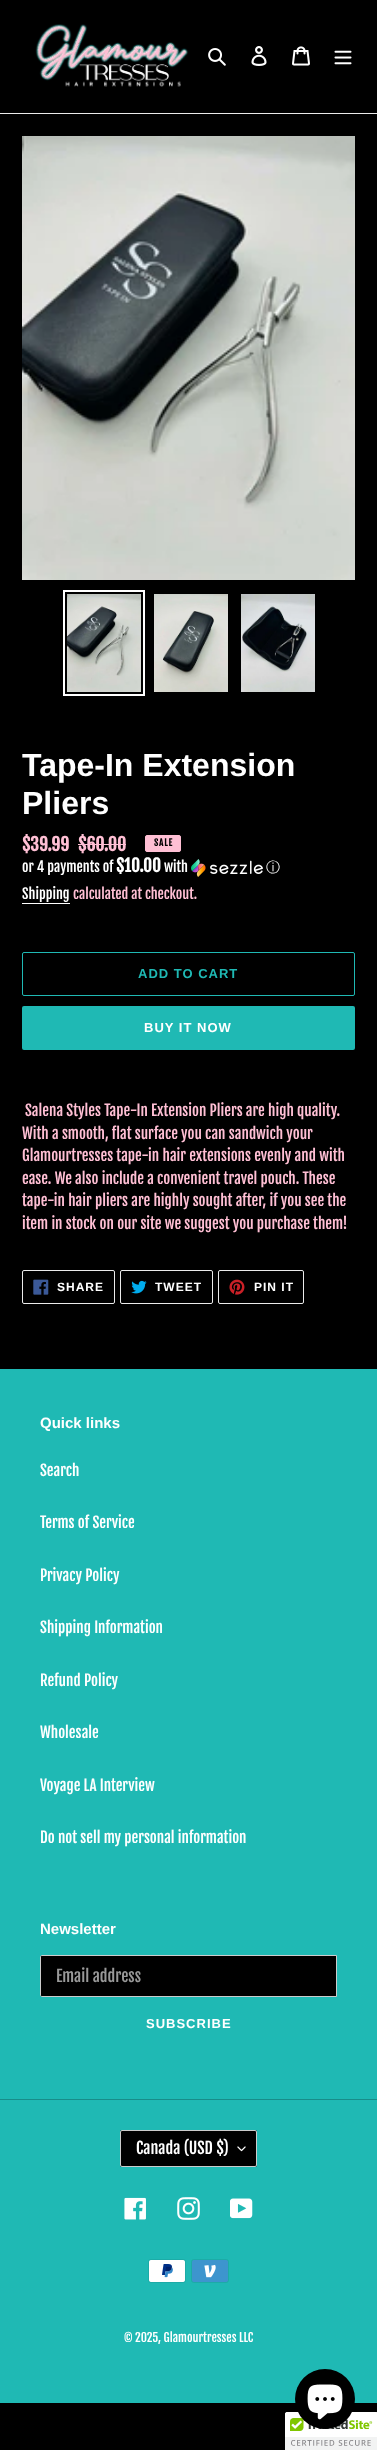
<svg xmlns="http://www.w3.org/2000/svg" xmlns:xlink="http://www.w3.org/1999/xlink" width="377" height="2450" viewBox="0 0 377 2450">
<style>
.cls-1{font:bold 32px Liberation Sans;fill:#ffffff}
.cls-2{font:bold 17.5px Fjalla One;fill:#ffbfd4}
.cls-3{font:bold 9px Fjalla One;letter-spacing:1px;fill:#000000}
.cls-4{font:14px Fjalla One;fill:#ffffff}
.cls-5{font:bold 17px Fjalla One;fill:#ffffff}
.cls-6{font:500 14px WenQuanYi Zen Hei;fill:#ffffff}
.cls-7{font:14px Fjalla One;fill:#ffbfd4}
.cls-8{font:bold 13px Liberation Sans;letter-spacing:1px;fill:#1fb9b4}
.cls-9{font:bold 13px Liberation Sans;letter-spacing:1px;fill:#ffffff}
.cls-10{font:15px Fjalla One;fill:#ffbfd4}
.cls-11{font:bold 12px Liberation Sans;letter-spacing:1px;fill:#ffffff}
.cls-12{font:bold 15px Liberation Sans;fill:#ffffff}
.cls-13{font:15px Fjalla One;fill:#ffffff}
.cls-14{font:16px Fjalla One;fill:#999999}
.cls-15{font:16px Fjalla One;fill:#ffffff}
.cls-16{font:12px Fjalla One;fill:#ffffff}
</style>
<defs>
<clipPath id="clip1"><rect x="22" y="857" width="258" height="20"/></clipPath>
</defs>
<rect width="100%" height="100%" fill="#000000"/>
<rect fill="#ebebeb" x="0" y="113" width="377" height="1"/>
<image xlink:href="image0.png" x="35" y="24" width="154" height="63"/>
<image xlink:href="image1.png" x="208" y="48" width="18" height="18"/>
<image xlink:href="image2.png" x="251" y="46" width="16" height="20"/>
<image xlink:href="image3.png" x="292" y="46" width="18" height="20"/>
<image xlink:href="image4.png" x="334" y="50" width="18" height="15"/>
<image xlink:href="image5.png" x="22" y="136" width="333" height="444"/>
<rect fill="none" stroke="#ffffff" stroke-width="2" x="64" y="591" width="80" height="104"/>
<image xlink:href="image6.png" x="67" y="594" width="74" height="98"/>
<image xlink:href="image7.png" x="154" y="594" width="74" height="98"/>
<image xlink:href="image8.png" x="241" y="594" width="74" height="98"/>
<rect fill="#ffbfd4" x="78" y="844" width="48" height="1"/>
<rect fill="#ffbfd4" stroke="#ffbfd4" x="145.5" y="835.5" width="35" height="16" rx="1.5"/>
<image xlink:href="image9.png" x="191" y="859" width="72" height="18"/>
<rect fill="#ffffff" x="22" y="903" width="48" height="1"/>
<rect fill="none" stroke="#1fb9b4" x="22.5" y="952.5" width="332" height="43" rx="1.5"/>
<rect fill="#1fb9b4" x="22" y="1006" width="333" height="44" rx="2"/>
<rect fill="none" stroke="#ebebeb" x="22.5" y="1270.5" width="92" height="33" rx="1.5"/>
<image xlink:href="image10.png" x="33" y="1279" width="16" height="16"/>
<rect fill="none" stroke="#ebebeb" x="120.5" y="1270.5" width="92" height="33" rx="1.5"/>
<image xlink:href="image11.png" x="131" y="1280" width="16" height="14"/>
<rect fill="none" stroke="#ebebeb" x="218.5" y="1270.5" width="85" height="33" rx="1.5"/>
<image xlink:href="image12.png" x="229" y="1279" width="16" height="16"/>
<rect fill="#1fb9b4" x="0" y="1369" width="377" height="1034"/>
<path fill="#000000" stroke="#cccccc" d="M42 1955.5H336.5V1996.5H42C41 1996.5 40.5 1996 40.5 1995V1957C40.5 1956 41 1955.5 42 1955.5Z"/>
<rect fill="#188d8a" x="0" y="2099" width="377" height="1"/>
<rect fill="#000000" x="120" y="2130" width="137" height="37" rx="2"/>
<image xlink:href="image13.png" x="237" y="2146" width="9" height="6"/>
<rect fill="none" stroke="#cccccc" x="120.5" y="2130.5" width="136" height="36" rx="1.5"/>
<image xlink:href="image14.png" x="124" y="2197" width="22" height="23"/>
<image xlink:href="image15.png" x="177" y="2197" width="23" height="23"/>
<image xlink:href="image16.png" x="230" y="2198" width="23" height="21"/>
<image xlink:href="image17.png" x="148" y="2259" width="38" height="24"/>
<image xlink:href="image18.png" x="191" y="2259" width="38" height="24"/>
<path fill="#ffffff" d="M287 2412H377V2450H285V2414C285 2413 286 2412 287 2412Z"/>
<image xlink:href="image20.png" x="285" y="2412" width="92" height="38"/>
<circle fill="#000000" cx="325" cy="2399" r="30"/>
<image xlink:href="image19.png" x="307" y="2384" width="36" height="36"/>
<text class="cls-1"><tspan x="22" y="776">Tape-In Extension</tspan><tspan x="22" y="814">Pliers</tspan></text>
<text class="cls-2" x="22" y="851">$39.99</text>
<text class="cls-2" x="78" y="851">$60.00</text>
<text class="cls-3" x="154" y="846">SALE</text>
<text class="cls-4" x="22" y="872">or 4 payments of</text>
<g clip-path="url(#clip1)">
<text class="cls-5" x="116" y="872">$10.00</text>
</g>
<text class="cls-4" x="164" y="872">with</text>
<text class="cls-6" x="266" y="872">ⓘ</text>
<text class="cls-4" x="22" y="899">Shipping</text>
<text class="cls-7" x="73" y="899">calculated at checkout.</text>
<text class="cls-8" x="138" y="978">ADD TO CART</text>
<text class="cls-9" x="144" y="1032">BUY IT NOW</text>
<text class="cls-10" x="25" y="1116">Salena Styles Tape-In Extension Pliers are high quality.</text>
<text class="cls-10"><tspan x="22" y="1139">With a smooth, flat surface you can sandwich your</tspan><tspan x="22" y="1161">Glamourtresses tape-in hair extensions evenly and with</tspan><tspan x="22" y="1184">ease. We also include a convenient travel pouch. These</tspan><tspan x="22" y="1206">tape-in hair pliers are highly sought after, if you see the</tspan><tspan x="22" y="1229">item in stock on our site we suggest you purchase them!</tspan></text>
<text class="cls-11" x="57" y="1291">SHARE</text>
<text class="cls-11" x="155" y="1291">TWEET</text>
<text class="cls-11" x="254" y="1291">PIN IT</text>
<text class="cls-12" x="40" y="1428">Quick links</text>
<text class="cls-13" x="40" y="1476">Search</text>
<text class="cls-13" x="40" y="1528">Terms of Service</text>
<text class="cls-13" x="40" y="1581">Privacy Policy</text>
<text class="cls-13" x="40" y="1633">Shipping Information</text>
<text class="cls-13" x="40" y="1686">Refund Policy</text>
<text class="cls-13" x="40" y="1738">Wholesale</text>
<text class="cls-13" x="40" y="1791">Voyage LA Interview</text>
<text class="cls-13" x="40" y="1843">Do not sell my personal information</text>
<text class="cls-12" x="40" y="1934">Newsletter</text>
<text class="cls-14" x="56" y="1982">Email address</text>
<text class="cls-9" x="146" y="2028">SUBSCRIBE</text>
<text class="cls-15" x="136" y="2154">Canada (USD $)</text>
<text class="cls-16" x="124" y="2342">© 2025, Glamourtresses LLC</text>
</svg>
